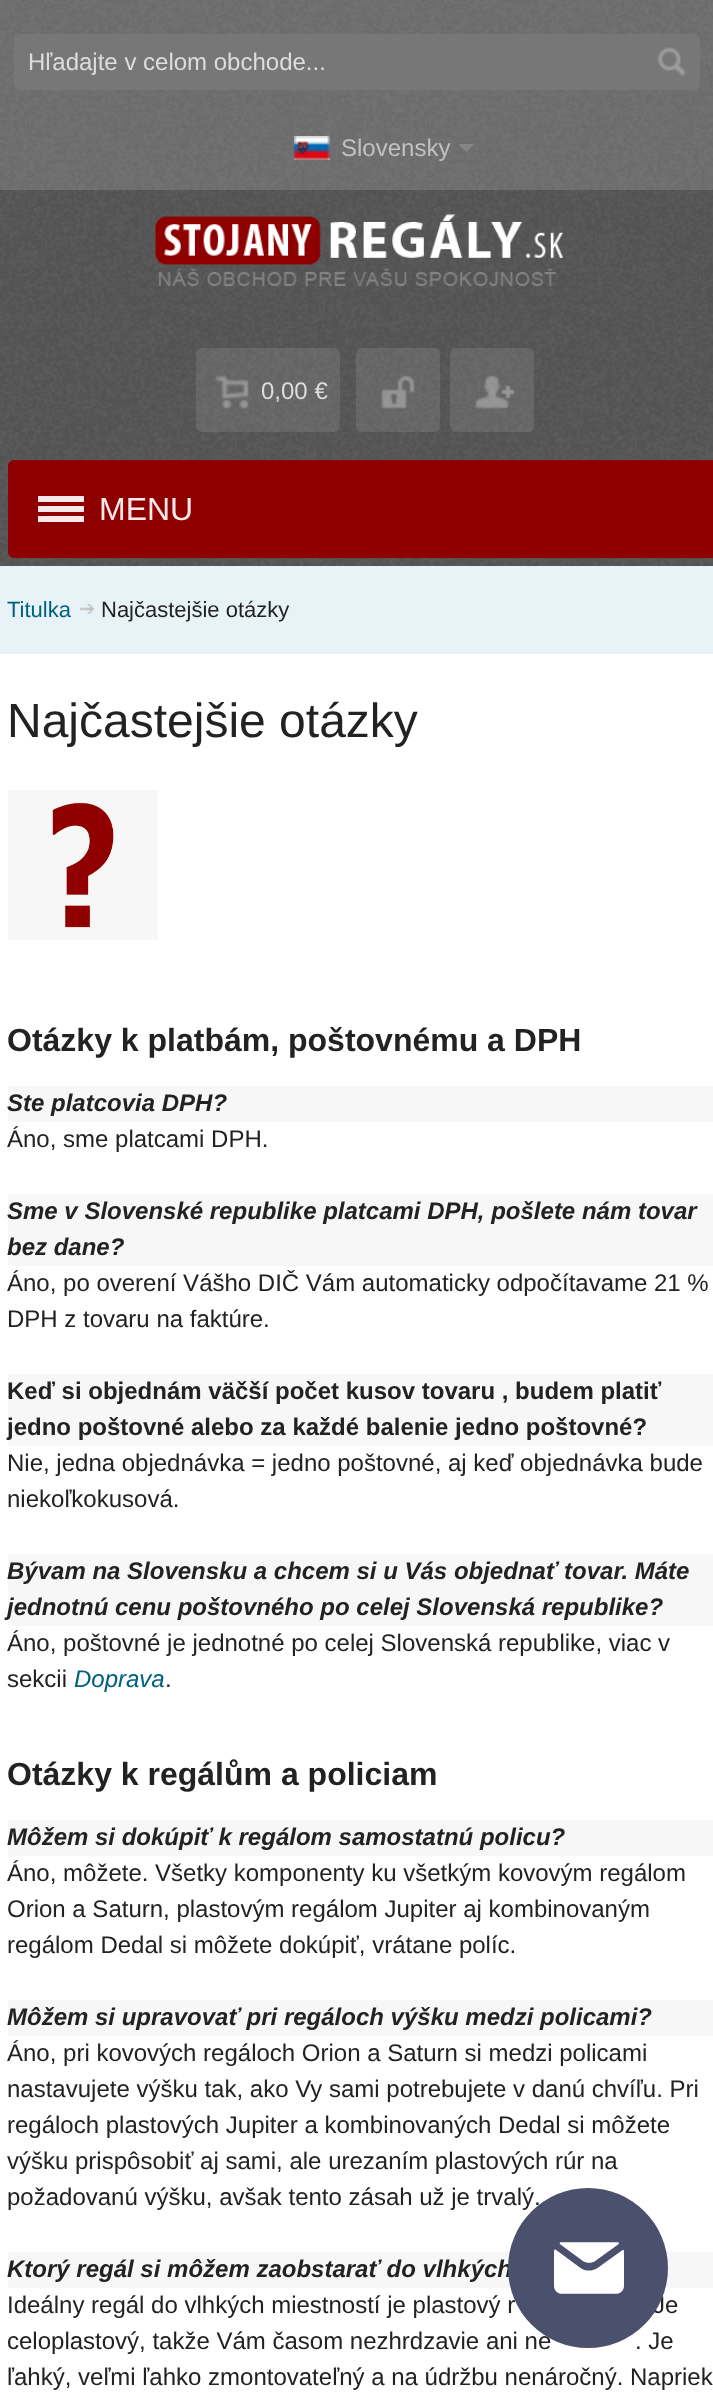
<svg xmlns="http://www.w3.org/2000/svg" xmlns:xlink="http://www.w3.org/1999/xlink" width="713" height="2394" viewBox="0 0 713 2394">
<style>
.cls-1{font:24px Liberation Sans;fill:#dddddd}
.cls-2{font:24px Liberation Sans;fill:#c1c1c1}
.cls-3{font:32px Liberation Sans;fill:#ffe8eb}
.cls-4{font:22px Liberation Sans;fill:#006080}
.cls-5{font:22px Liberation Sans;fill:#222222}
.cls-6{font:48px Liberation Sans;fill:#222222}
.cls-7{font:bold 32px Liberation Sans;fill:#222222}
.cls-8{font:italic bold 24px Liberation Sans;fill:#222222}
.cls-9{font:24px Liberation Sans;fill:#222222}
.cls-10{font:bold 24px Liberation Sans;fill:#222222}
.cls-11{font:italic 24px Liberation Sans;fill:#006080}
</style>
<rect width="100%" height="100%" fill="#565656"/>
<image xlink:href="image0.png" x="0" y="0" width="713" height="566"/>
<rect fill="#ffffff" fill-opacity="0.15" x="0" y="0" width="713" height="190"/>
<rect fill="#777777" x="14" y="34" width="686" height="56" rx="6"/>
<image xlink:href="image1.png" x="657" y="47" width="29" height="30"/>
<image xlink:href="image2.png" x="294" y="136" width="36" height="24"/>
<path fill="#c1c1c1" fill-opacity="0.3" d="M458 144H474L466 152Z"/>
<image xlink:href="image3.png" x="155" y="214" width="408" height="73"/>
<rect fill="#ffffff" fill-opacity="0.1" x="196" y="348" width="144" height="84" rx="6"/>
<image xlink:href="image4.png" x="215" y="375" width="34" height="34"/>
<rect fill="#ffffff" fill-opacity="0.1" x="356" y="348" width="84" height="84" rx="6"/>
<image xlink:href="image5.png" x="381" y="375" width="34" height="34"/>
<rect fill="#ffffff" fill-opacity="0.1" x="450" y="348" width="84" height="84" rx="6"/>
<image xlink:href="image6.png" x="475" y="375" width="40" height="34"/>
<rect fill="#8e0000" x="8" y="460" width="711" height="98" rx="6"/>
<rect fill="#ffe8eb" x="38" y="496" width="46" height="6"/>
<rect fill="#ffe8eb" x="38" y="506" width="46" height="6"/>
<rect fill="#ffe8eb" x="38" y="516" width="46" height="6"/>
<rect fill="#ffffff" x="0" y="654" width="713" height="1740"/>
<rect fill="#e7f3f7" x="0" y="566" width="713" height="88"/>
<image xlink:href="image7.png" x="80" y="604" width="14" height="10"/>
<image xlink:href="image8.png" x="8" y="790" width="150" height="150"/>
<rect fill="#f7f7f7" x="8" y="1086" width="705" height="36"/>
<rect fill="#f7f7f7" x="8" y="1194" width="705" height="72"/>
<rect fill="#f7f7f7" x="8" y="1374" width="705" height="72"/>
<rect fill="#f7f7f7" x="8" y="1554" width="705" height="72"/>
<rect fill="#f7f7f7" x="8" y="1820" width="705" height="36"/>
<rect fill="#f7f7f7" x="8" y="2000" width="705" height="36"/>
<rect fill="#f7f7f7" x="8" y="2252" width="705" height="36"/>
<text class="cls-1" x="28" y="70">Hľadajte v celom obchode...</text>
<text class="cls-2" x="341" y="156">Slovensky</text>
<text class="cls-1" x="261" y="399">0,00 €</text>
<text class="cls-3" x="99" y="520">MENU</text>
<text class="cls-4" x="7" y="617">Titulka</text>
<text class="cls-5" x="101" y="617">Najčastejšie otázky</text>
<text class="cls-6" x="7" y="737">Najčastejšie otázky</text>
<text class="cls-7" x="7" y="1051">Otázky k platbám, poštovnému a DPH</text>
<text class="cls-8" x="7" y="1111">Ste platcovia DPH?</text>
<text class="cls-9" x="7" y="1147">Áno, sme platcami DPH.</text>
<text class="cls-8"><tspan x="7" y="1219">Sme v Slovenské republike platcami DPH, pošlete nám tovar</tspan><tspan x="7" y="1255">bez dane?</tspan></text>
<text class="cls-9"><tspan x="7" y="1291">Áno, po overení Vášho DIČ Vám automaticky odpočítavame 21 %</tspan><tspan x="7" y="1327">DPH z tovaru na faktúre.</tspan></text>
<text class="cls-10"><tspan x="7" y="1399">Keď si objednám väčší počet kusov tovaru , budem platiť</tspan><tspan x="7" y="1435">jedno poštovné alebo za každé balenie jedno poštovné?</tspan></text>
<text class="cls-9"><tspan x="7" y="1471">Nie, jedna objednávka = jedno poštovné, aj keď objednávka bude</tspan><tspan x="7" y="1507">niekoľkokusová.</tspan></text>
<text class="cls-8"><tspan x="7" y="1579">Bývam na Slovensku a chcem si u Vás objednať tovar. Máte</tspan><tspan x="7" y="1615">jednotnú cenu poštovného po celej Slovenská republike?</tspan></text>
<text class="cls-9"><tspan x="7" y="1651">Áno, poštovné je jednotné po celej Slovenská republike, viac v</tspan><tspan x="7" y="1687">sekcii</tspan></text>
<text class="cls-11" x="74" y="1687">Doprava</text>
<text class="cls-9" x="165" y="1687">.</text>
<text class="cls-7" x="7" y="1785">Otázky k regálům a policiam</text>
<text class="cls-8" x="7" y="1845">Môžem si dokúpiť k regálom samostatnú policu?</text>
<text class="cls-9"><tspan x="7" y="1881">Áno, môžete. Všetky komponenty ku všetkým kovovým regálom</tspan><tspan x="7" y="1917">Orion a Saturn, plastovým regálom Jupiter aj kombinovaným</tspan><tspan x="7" y="1953">regálom Dedal si môžete dokúpiť, vrátane políc.</tspan></text>
<text class="cls-8" x="7" y="2025">Môžem si upravovať pri regáloch výšku medzi policami?</text>
<text class="cls-9"><tspan x="7" y="2061">Áno, pri kovových regáloch Orion a Saturn si medzi policami</tspan><tspan x="7" y="2097">nastavujete výšku tak, ako Vy sami potrebujete v danú chvíľu. Pri</tspan><tspan x="7" y="2133">regáloch plastových Jupiter a kombinovaných Dedal si môžete</tspan><tspan x="7" y="2169">výšku prispôsobiť aj sami, ale urezaním plastových rúr na</tspan><tspan x="7" y="2205">požadovanú výšku, avšak tento zásah už je trvalý.</tspan></text>
<text class="cls-8" x="7" y="2277">Ktorý regál si môžem zaobstarať do vlhkých</text>
<text class="cls-9" x="7" y="2313">Ideálny regál do vlhkých miestností je plastový r</text>
<text class="cls-9" x="653" y="2313">Je</text>
<text class="cls-9" x="7" y="2349">celoplastový, takže Vám časom nezhrdzavie ani ne</text>
<text class="cls-9" x="635" y="2349">. Je</text>
<text class="cls-9" x="7" y="2385">ľahký, veľmi ľahko zmontovateľný a na údržbu nenáročný. Napriek</text>
<image xlink:href="image9.png" x="508" y="2188" width="160" height="160"/>
</svg>
